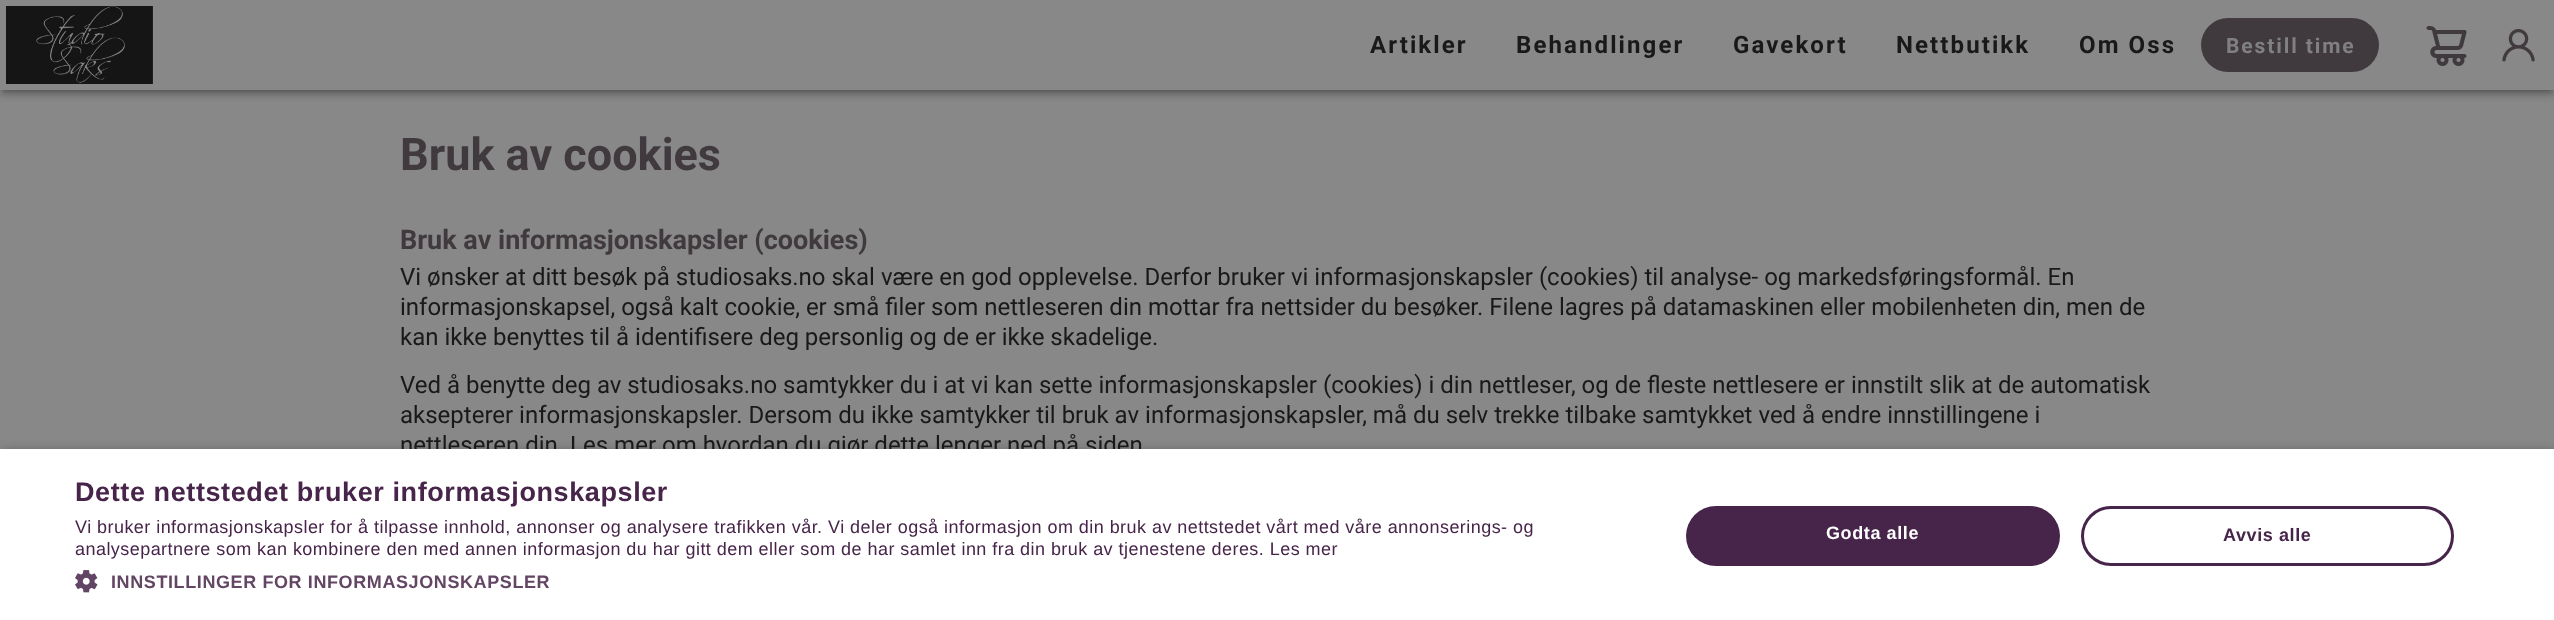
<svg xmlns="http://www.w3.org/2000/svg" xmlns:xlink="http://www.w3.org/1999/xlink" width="2554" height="620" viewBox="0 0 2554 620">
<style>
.cls-1{font:bold 24px Roboto;letter-spacing:2.1px;fill:#191919}
.cls-2{font:bold 21px Roboto;letter-spacing:1.9px;fill:#808080}
.cls-3{font:bold 45px Roboto;fill:#403a3f}
.cls-4{font:bold 27px Roboto;fill:#403a3f}
.cls-5{font:24px Roboto;fill:#191919}
.cls-6{font:bold 27px Liberation Sans;letter-spacing:0.6px;fill:#472449}
.cls-7{font:18px Liberation Sans;letter-spacing:0.45px;fill:#472449}
.cls-8{font:bold 18px Liberation Sans;letter-spacing:0.6px;fill:#634564}
.cls-9{font:bold 18px Liberation Sans;letter-spacing:0.6px;fill:#ffffff}
.cls-10{font:bold 18px Liberation Sans;letter-spacing:0.6px;fill:#472449}
</style>
<rect width="100%" height="100%" fill="#888888"/>
<rect fill="#090909" fill-opacity="0.12" filter="blur(6px)" x="0" y="2" width="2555" height="90"/>
<rect fill="#090909" fill-opacity="0.14" filter="blur(3px)" x="0" y="5" width="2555" height="90"/>
<rect fill="#090909" fill-opacity="0.2" filter="blur(2px)" x="3" y="8" width="2549" height="84"/>
<rect fill="#888888" x="0" y="0" width="2554" height="90"/>
<image xlink:href="image0.png" x="6" y="6" width="147" height="78"/>
<rect fill="#403a3f" x="2201" y="18" width="178" height="54" rx="27"/>
<image xlink:href="image1.png" x="2426" y="26" width="41" height="40"/>
<image xlink:href="image2.png" x="2502" y="29" width="33" height="33"/>
<rect fill="#000000" fill-opacity="0.35" filter="blur(6px)" x="2" y="452" width="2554" height="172"/>
<text class="cls-1" x="1370" y="53">Artikler</text>
<text class="cls-1" x="1516" y="53">Behandlinger</text>
<text class="cls-1" x="1733" y="53">Gavekort</text>
<text class="cls-1" x="1896" y="53">Nettbutikk</text>
<text class="cls-1" x="2079" y="53">Om Oss</text>
<text class="cls-2" x="2226" y="53">Bestill time</text>
<text class="cls-3" x="400" y="170">Bruk av cookies</text>
<text class="cls-4" x="400" y="249">Bruk av informasjonskapsler (cookies)</text>
<text class="cls-5"><tspan x="400" y="285">Vi ønsker at ditt besøk på studiosaks.no skal være en god opplevelse. Derfor bruker vi informasjonskapsler (cookies) til analyse- og markedsføringsformål. En</tspan><tspan x="400" y="315">informasjonskapsel, også kalt cookie, er små filer som nettleseren din mottar fra nettsider du besøker. Filene lagres på datamaskinen eller mobilenheten din, men de</tspan><tspan x="400" y="345">kan ikke benyttes til å identifisere deg personlig og de er ikke skadelige.</tspan></text>
<text class="cls-5"><tspan x="400" y="393">Ved å benytte deg av studiosaks.no samtykker du i at vi kan sette informasjonskapsler (cookies) i din nettleser, og de fleste nettlesere er innstilt slik at de automatisk</tspan><tspan x="400" y="423">aksepterer informasjonskapsler. Dersom du ikke samtykker til bruk av informasjonskapsler, må du selv trekke tilbake samtykket ved å endre innstillingene i</tspan><tspan x="400" y="453">nettleseren din. Les mer om hvordan du gjør dette lenger ned på siden</tspan></text>
<rect fill="#ffffff" x="0" y="449" width="2554" height="171"/>
<text class="cls-6" x="75" y="501">Dette nettstedet bruker informasjonskapsler</text>
<text class="cls-7"><tspan x="75" y="533">Vi bruker informasjonskapsler for å tilpasse innhold, annonser og analysere trafikken vår. Vi deler også informasjon om din bruk av nettstedet vårt med våre annonserings- og</tspan><tspan x="75" y="555">analysepartnere som kan kombinere den med annen informasjon du har gitt dem eller som de har samlet inn fra din bruk av tjenestene deres. Les mer</tspan></text>
<image xlink:href="image3.png" x="75" y="570" width="23" height="23"/>
<text class="cls-8" x="111" y="588">INNSTILLINGER FOR INFORMASJONSKAPSLER</text>
<rect fill="#472449" x="1686" y="506" width="374" height="60" rx="30"/>
<text class="cls-9" x="1826" y="539">Godta alle</text>
<rect fill="none" stroke="#472449" stroke-width="3" x="2082.5" y="507.5" width="370" height="57" rx="28.5"/>
<text class="cls-10" x="2223" y="541">Avvis alle</text>
</svg>
